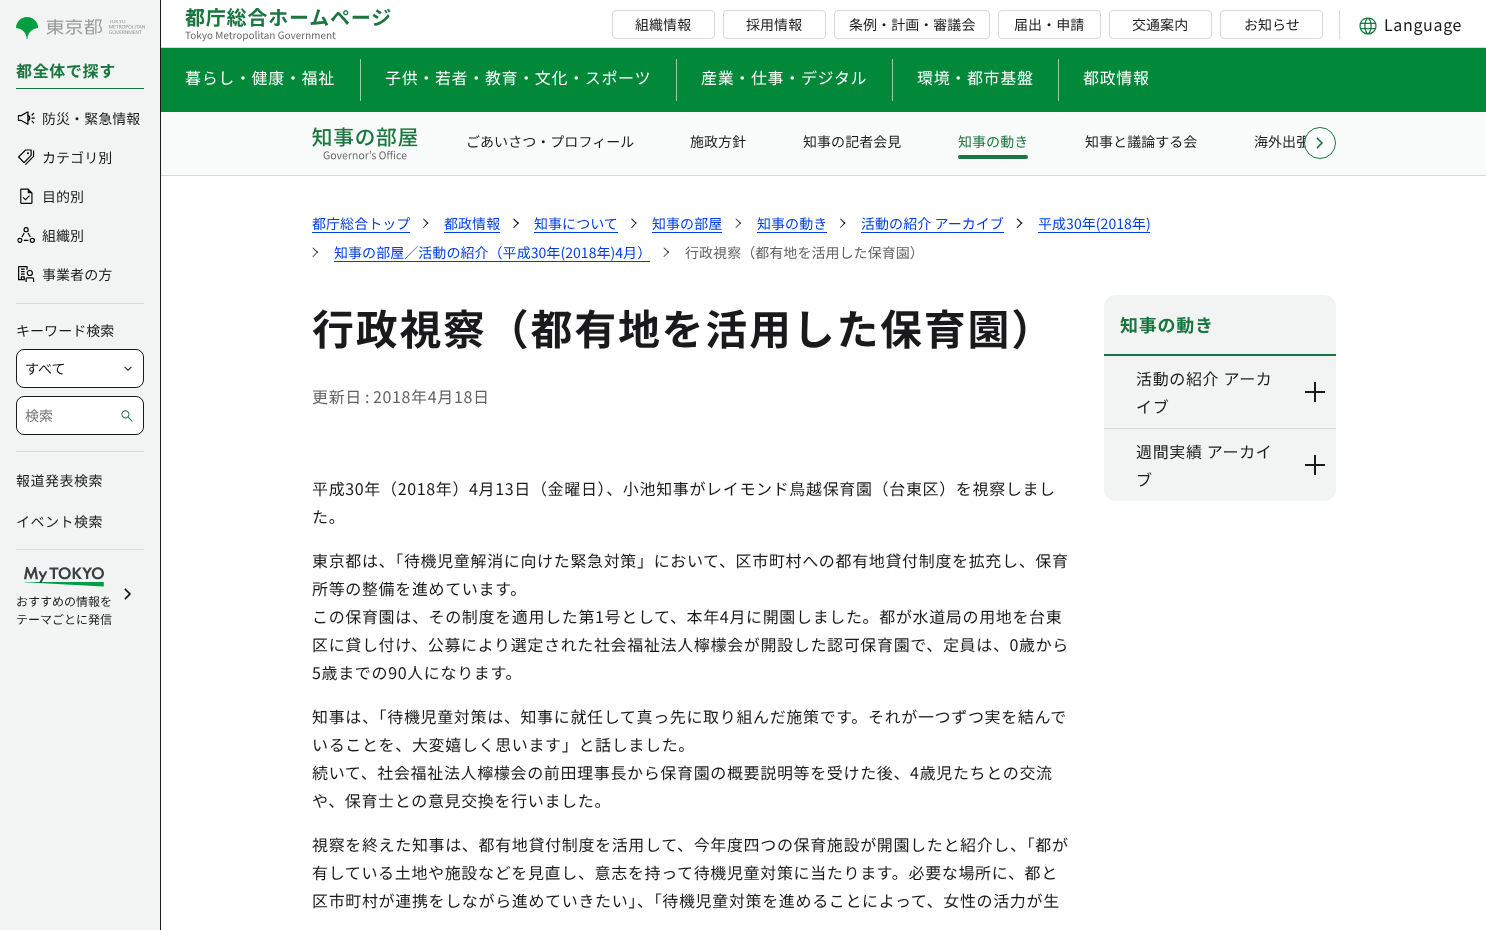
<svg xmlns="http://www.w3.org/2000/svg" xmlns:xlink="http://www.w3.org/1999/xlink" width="1486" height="930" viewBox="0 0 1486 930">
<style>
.cls-1{font:14px Noto Sans JP;letter-spacing:0.05px;fill:#1a1a1c}
.cls-2{font:16px Noto Sans JP;letter-spacing:0.65px;fill:#1a1a1c}
.cls-3{font:16px Noto Sans JP;letter-spacing:0.65px;fill:#ffffff}
.cls-4{font:bold 16px Noto Sans JP;letter-spacing:0.65px;fill:#1a753f}
.cls-5{font:14px Noto Sans JP;letter-spacing:0.05px;fill:#757575}
.cls-6{font:14px Noto Sans JP;letter-spacing:0.5px;fill:#1a1a1c}
.cls-7{font:12px Noto Sans JP;fill:#1a1a1c}
.cls-8{font:14px Noto Sans JP;letter-spacing:0.05px;fill:#1a753f}
.cls-9{font:14px Noto Sans JP;letter-spacing:0.05px;fill:#003ee5}
.cls-10{font:14px Noto Sans JP;letter-spacing:0.05px;fill:#626264}
.cls-11{font:bold 42px Noto Sans JP;letter-spacing:1.7px;fill:#1a1a1c}
.cls-12{font:16px Noto Sans JP;letter-spacing:0.65px;fill:#626264}
.cls-13{font:bold 18px Noto Sans JP;letter-spacing:0.75px;fill:#1a753f}
</style>
<rect width="100%" height="100%" fill="#ffffff"/>
<rect fill="#d9d9d9" x="161" y="47" width="1325" height="1"/>
<image xlink:href="image0.png" x="185" y="8" width="206" height="34"/>
<rect fill="none" stroke="#d8d8db" x="612.5" y="10.5" width="102" height="28" rx="3.5"/>
<rect fill="none" stroke="#d8d8db" x="723.5" y="10.5" width="102" height="28" rx="3.5"/>
<rect fill="none" stroke="#d8d8db" x="834.5" y="10.5" width="155" height="28" rx="3.5"/>
<rect fill="none" stroke="#d8d8db" x="998.5" y="10.5" width="102" height="28" rx="3.5"/>
<rect fill="none" stroke="#d8d8db" x="1109.5" y="10.5" width="102" height="28" rx="3.5"/>
<rect fill="none" stroke="#d8d8db" x="1220.5" y="10.5" width="102" height="28" rx="3.5"/>
<rect fill="#d8d8db" x="1339" y="10" width="1" height="29"/>
<image xlink:href="image1.png" x="1359" y="17" width="18" height="18"/>
<rect fill="#018838" x="161" y="48" width="1325" height="64"/>
<rect fill="#99cfaf" x="360" y="59" width="1" height="42"/>
<rect fill="#99cfaf" x="676" y="59" width="1" height="42"/>
<rect fill="#99cfaf" x="892" y="59" width="1" height="42"/>
<rect fill="#99cfaf" x="1058" y="59" width="1" height="42"/>
<rect fill="#f1f4f2" x="0" y="0" width="160" height="930"/>
<rect fill="#1a1a1c" x="160" y="0" width="1" height="930"/>
<image xlink:href="image2.png" x="16" y="17" width="129" height="22"/>
<rect fill="#1a753f" x="16" y="88" width="128" height="1"/>
<image xlink:href="image3.png" x="17" y="111" width="18" height="14"/>
<image xlink:href="image4.png" x="18" y="149" width="17" height="16"/>
<image xlink:href="image5.png" x="20" y="188" width="13" height="16"/>
<image xlink:href="image6.png" x="17" y="227" width="18" height="16"/>
<image xlink:href="image7.png" x="18" y="266" width="17" height="16"/>
<rect fill="#dbdbdb" x="16" y="303" width="128" height="1"/>
<rect fill="#ffffff" x="16" y="349" width="128" height="39" rx="8"/>
<image xlink:href="image8.png" x="124" y="366" width="8" height="5"/>
<rect fill="none" stroke="#1a1a1c" x="16.5" y="349.5" width="127" height="38" rx="7.5"/>
<rect fill="#ffffff" stroke="#1a1a1c" x="16.5" y="396.5" width="127" height="38" rx="7.5"/>
<image xlink:href="image9.png" x="121" y="410" width="12" height="12"/>
<rect fill="#d8d8db" x="16" y="451" width="128" height="1"/>
<rect fill="#d8d8db" x="16" y="549" width="128" height="1"/>
<image xlink:href="image10.png" x="24" y="567" width="80" height="20"/>
<image xlink:href="image11.png" x="124" y="588" width="7" height="12"/>
<rect fill="#f8fbf9" x="161" y="112" width="1325" height="63"/>
<rect fill="#d8d8db" x="161" y="175" width="1325" height="1"/>
<image xlink:href="image12.png" x="312" y="127" width="106" height="33"/>
<rect fill="#1a753f" x="958" y="155" width="70" height="4" rx="2"/>
<rect fill="#003ee5" x="312" y="232" width="98" height="1"/>
<path fill="#1a1a1c" d="M423.5 218.5L428.5 223L427.5 224L423 219Z"/>
<path fill="#1a1a1c" d="M427.5 222.5L428.5 223L423.5 228L423 227.5Z"/>
<rect fill="#003ee5" x="444" y="232" width="56" height="1"/>
<path fill="#1a1a1c" d="M514 218.5L519 223L518 224L513 219Z"/>
<path fill="#1a1a1c" d="M518 222.5L519 223L514 228L513 227.5Z"/>
<rect fill="#003ee5" x="534" y="232" width="84" height="1"/>
<path fill="#1a1a1c" d="M632 218.5L636.5 223L636 224L631 219Z"/>
<path fill="#1a1a1c" d="M636 222.5L636.5 223L632 228L631 227.5Z"/>
<rect fill="#003ee5" x="652" y="232" width="70" height="1"/>
<path fill="#1a1a1c" d="M736 218.5L741 223L740.5 224L735.5 219Z"/>
<path fill="#1a1a1c" d="M740.5 222.5L741 223L736 228L735.5 227.5Z"/>
<rect fill="#003ee5" x="757" y="232" width="70" height="1"/>
<path fill="#1a1a1c" d="M840.5 218.5L845.5 223L844.5 224L840 219Z"/>
<path fill="#1a1a1c" d="M844.5 222.5L845.5 223L840.5 228L840 227.5Z"/>
<rect fill="#003ee5" x="861" y="232" width="143" height="1"/>
<path fill="#1a1a1c" d="M1017.5 218.5L1022.5 223L1021.5 224L1016.5 219Z"/>
<path fill="#1a1a1c" d="M1021.5 222.5L1022.5 223L1017.5 228L1016.5 227.5Z"/>
<rect fill="#003ee5" x="1038" y="232" width="112" height="1"/>
<path fill="#1a1a1c" d="M313 247.5L318 252L317.5 253L312.5 248Z"/>
<path fill="#1a1a1c" d="M317.5 251.5L318 252L313 257L312.5 256.5Z"/>
<rect fill="#003ee5" x="334" y="261" width="316" height="1"/>
<path fill="#1a1a1c" d="M664 247.5L669 252L668.5 253L663.5 248Z"/>
<path fill="#1a1a1c" d="M668.5 251.5L669 252L664 257L663.5 256.5Z"/>
<rect fill="#f1f4f2" x="1104" y="295" width="232" height="206" rx="12"/>
<rect fill="#1a753f" x="1104" y="354" width="232" height="2"/>
<rect fill="#d8d8db" x="1104" y="428" width="232" height="1"/>
<rect fill="#1a1a1c" x="1305" y="391" width="20" height="2"/>
<rect fill="#1a1a1c" x="1314" y="382" width="2" height="20"/>
<rect fill="#1a1a1c" x="1305" y="464" width="20" height="2"/>
<rect fill="#1a1a1c" x="1314" y="455" width="2" height="20"/>
<text class="cls-1" x="635" y="30">組織情報</text>
<text class="cls-1" x="746" y="30">採用情報</text>
<text class="cls-1" x="849" y="30">条例・計画・審議会</text>
<text class="cls-1" x="1014" y="30">届出・申請</text>
<text class="cls-1" x="1132" y="30">交通案内</text>
<text class="cls-1" x="1244" y="30">お知らせ</text>
<text class="cls-2" x="1384" y="31">Language</text>
<text class="cls-3" x="185" y="84">暮らし・健康・福祉</text>
<text class="cls-3" x="385" y="84">子供・若者・教育・文化・スポーツ</text>
<text class="cls-3" x="701" y="84">産業・仕事・デジタル</text>
<text class="cls-3" x="917" y="84">環境・都市基盤</text>
<text class="cls-3" x="1083" y="84">都政情報</text>
<text class="cls-4" x="16" y="77">都全体で探す</text>
<text class="cls-1" x="42" y="124">防災・緊急情報</text>
<text class="cls-1" x="42" y="163">カテゴリ別</text>
<text class="cls-1" x="42" y="202">目的別</text>
<text class="cls-1" x="42" y="241">組織別</text>
<text class="cls-1" x="42" y="280">事業者の方</text>
<text class="cls-1" x="16" y="336">キーワード検索</text>
<text class="cls-1" x="25" y="374">すべて</text>
<text class="cls-5" x="25" y="421">検索</text>
<text class="cls-6" x="16" y="486">報道発表検索</text>
<text class="cls-6" x="16" y="527">イベント検索</text>
<text class="cls-7"><tspan x="16" y="606">おすすめの情報を</tspan><tspan x="16" y="624">テーマごとに発信</tspan></text>
<text class="cls-1" x="466" y="147">ごあいさつ・プロフィール</text>
<text class="cls-1" x="690" y="147">施政方針</text>
<text class="cls-1" x="803" y="147">知事の記者会見</text>
<text class="cls-8" x="958" y="147">知事の動き</text>
<text class="cls-1" x="1085" y="147">知事と議論する会</text>
<text class="cls-1" x="1254" y="147">海外出張</text>
<circle fill="#ffffff" stroke="#1a753f" cx="1320" cy="143" r="15.5"/>
<image xlink:href="image13.png" x="1316" y="137" width="7" height="12"/>
<text class="cls-9" x="312" y="229">都庁総合トップ</text>
<text class="cls-9" x="444" y="229">都政情報</text>
<text class="cls-9" x="534" y="229">知事について</text>
<text class="cls-9" x="652" y="229">知事の部屋</text>
<text class="cls-9" x="757" y="229">知事の動き</text>
<text class="cls-9" x="861" y="229">活動の紹介 アーカイブ</text>
<text class="cls-9" x="1038" y="229">平成30年(2018年)</text>
<text class="cls-9" x="334" y="258">知事の部屋／活動の紹介（平成30年(2018年)4月）</text>
<text class="cls-10" x="685" y="258">行政視察（都有地を活用した保育園）</text>
<text class="cls-11" x="312" y="345">行政視察（都有地を活用した保育園）</text>
<text class="cls-12" x="312" y="403">更新日</text>
<text class="cls-12" x="365" y="403">:</text>
<text class="cls-12" x="373" y="403">2018年4月18日</text>
<text class="cls-2"><tspan x="312" y="495">平成30年（2018年）4月13日（金曜日）、小池知事がレイモンド鳥越保育園（台東区）を視察しまし</tspan><tspan x="312" y="523">た。</tspan></text>
<text class="cls-2"><tspan x="312" y="567">東京都は、「待機児童解消に向けた緊急対策」において、区市町村への都有地貸付制度を拡充し、保育</tspan><tspan x="312" y="595">所等の整備を進めています。</tspan><tspan x="312" y="623">この保育園は、その制度を適用した第1号として、本年4月に開園しました。都が水道局の用地を台東</tspan><tspan x="312" y="651">区に貸し付け、公募により選定された社会福祉法人檸檬会が開設した認可保育園で、定員は、0歳から</tspan><tspan x="312" y="679">5歳までの90人になります。</tspan></text>
<text class="cls-2"><tspan x="312" y="723">知事は、「待機児童対策は、知事に就任して真っ先に取り組んだ施策です。それが一つずつ実を結んで</tspan><tspan x="312" y="751">いることを、大変嬉しく思います」と話しました。</tspan><tspan x="312" y="779">続いて、社会福祉法人檸檬会の前田理事長から保育園の概要説明等を受けた後、4歳児たちとの交流</tspan><tspan x="312" y="807">や、保育士との意見交換を行いました。</tspan></text>
<text class="cls-2"><tspan x="312" y="851">視察を終えた知事は、都有地貸付制度を活用して、今年度四つの保育施設が開園したと紹介し、「都が</tspan><tspan x="312" y="879">有している土地や施設などを見直し、意志を持って待機児童対策に当たります。必要な場所に、都と</tspan><tspan x="312" y="907">区市町村が連携をしながら進めていきたい」、「待機児童対策を進めることによって、女性の活力が生</tspan></text>
<text class="cls-13" x="1120" y="332">知事の動き</text>
<text class="cls-2"><tspan x="1136" y="385">活動の紹介 アーカ</tspan><tspan x="1136" y="413">イブ</tspan></text>
<text class="cls-2"><tspan x="1136" y="458">週間実績 アーカイ</tspan><tspan x="1136" y="486">ブ</tspan></text>
</svg>
